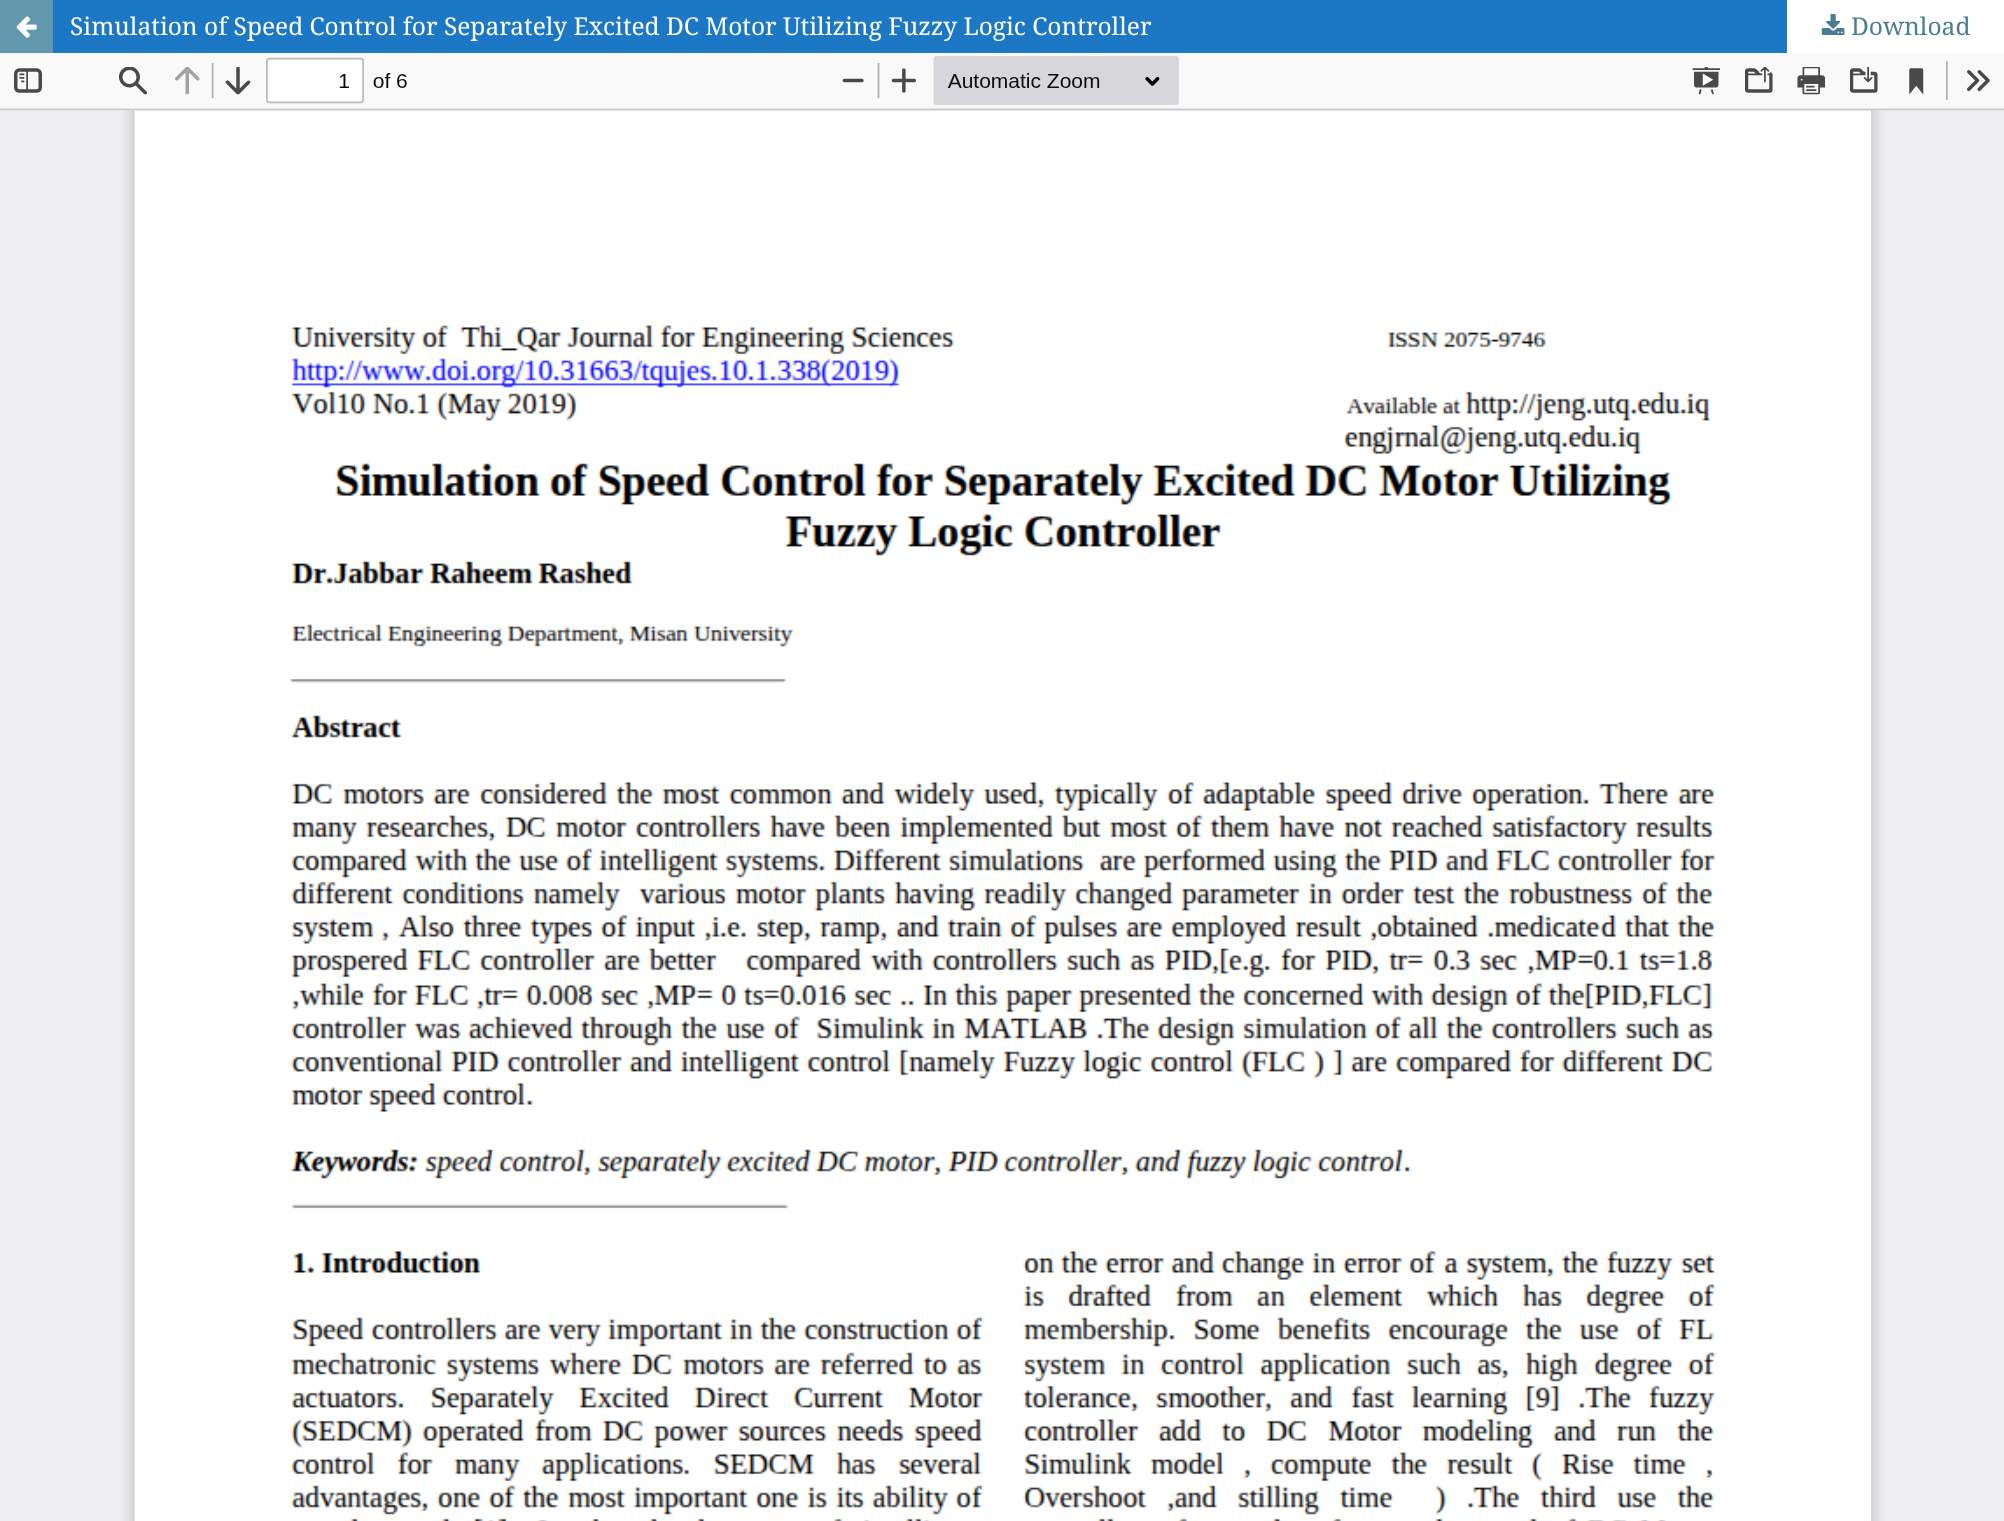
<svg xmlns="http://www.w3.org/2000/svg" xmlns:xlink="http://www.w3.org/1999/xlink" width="2004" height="1521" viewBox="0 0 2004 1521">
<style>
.cls-1{font:24.5px Noto Serif;fill:#ffffff}
.cls-2{font:24.5px Noto Serif;fill:#4b7d92}
</style>
<rect width="100%" height="100%" fill="#ffffff"/>
<rect fill="#1c78c5" x="53" y="0" width="1734" height="53"/>
<rect fill="#6298ae" x="0" y="0" width="53" height="53"/>
<image xlink:href="image0.png" x="16" y="16" width="21" height="22"/>
<image xlink:href="image1.png" x="1821" y="14" width="24" height="21"/>
<image xlink:href="image2.png" x="0" y="53" width="2004" height="1468"/>
<text class="cls-1" x="70" y="35">Simulation of Speed Control for Separately Excited DC Motor Utilizing Fuzzy Logic Controller</text>
<text class="cls-2" x="1851" y="35">Download</text>
</svg>
